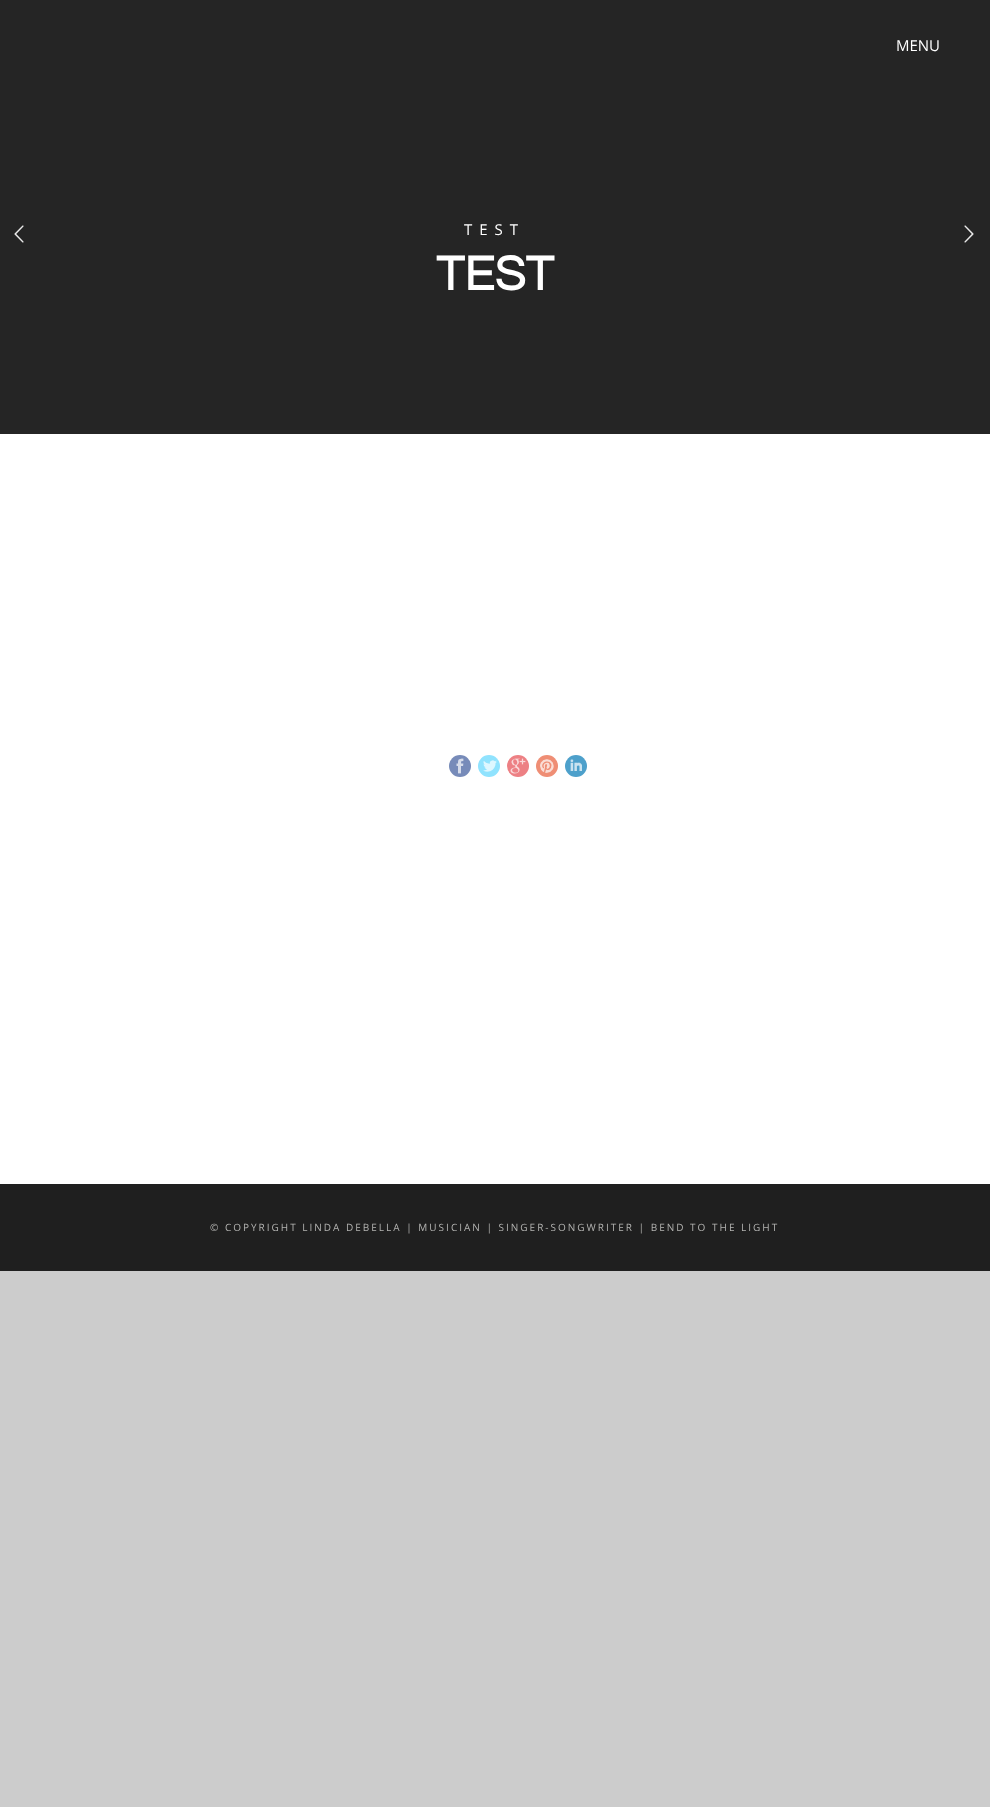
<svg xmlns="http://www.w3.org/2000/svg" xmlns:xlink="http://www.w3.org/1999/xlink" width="990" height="1807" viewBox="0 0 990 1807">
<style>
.cls-1{font:15px Open Sans;fill:#ffffff}
.cls-2{font:15px Open Sans;letter-spacing:7px;fill:#ffffff}
.cls-3{font:bold 50px Questrial;fill:#ffffff}
.cls-4{font:10px Open Sans;letter-spacing:2px;fill:#b3b3b1}
</style>
<rect width="100%" height="100%" fill="#cccccc"/>
<rect fill="#ffffff" x="0" y="434" width="990" height="750"/>
<rect fill="#252525" x="0" y="0" width="990" height="434"/>
<image xlink:href="image0.png" x="14" y="225" width="10" height="18"/>
<image xlink:href="image1.png" x="964" y="225" width="10" height="18"/>
<circle fill="#778bb9" cx="460" cy="766" r="11"/>
<image xlink:href="image2.png" x="456" y="758" width="8" height="16"/>
<circle fill="#90e3fe" cx="489" cy="766" r="11"/>
<image xlink:href="image3.png" x="483" y="760" width="14" height="12"/>
<circle fill="#ed8084" cx="518" cy="766" r="11"/>
<image xlink:href="image4.png" x="510" y="758" width="16" height="16"/>
<circle fill="#ef8e75" cx="547" cy="766" r="11"/>
<image xlink:href="image5.png" x="540" y="759" width="14" height="14"/>
<circle fill="#4da0cb" cx="576" cy="766" r="11"/>
<image xlink:href="image6.png" x="570" y="759" width="12" height="12"/>
<rect fill="#1f1f1f" x="0" y="1184" width="990" height="87"/>
<text class="cls-1" x="896" y="51">MENU</text>
<text class="cls-2" x="464" y="235">TEST</text>
<text class="cls-3" x="436" y="290">TEST</text>
<text class="cls-4" x="210" y="1231">© COPYRIGHT LINDA DEBELLA | MUSICIAN | SINGER-SONGWRITER | BEND TO THE LIGHT</text>
</svg>
